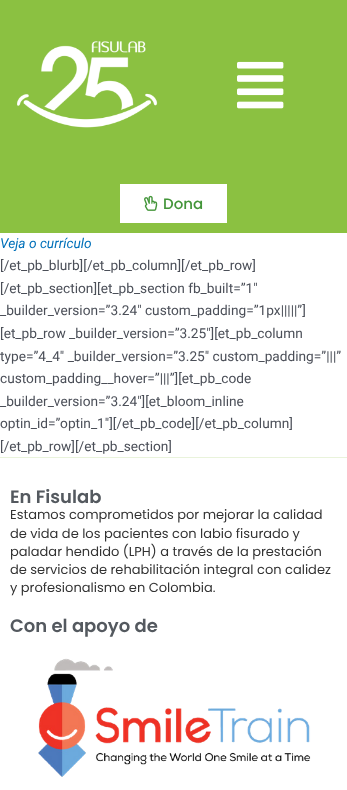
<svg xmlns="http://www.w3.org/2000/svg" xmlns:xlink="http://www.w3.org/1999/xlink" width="347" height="790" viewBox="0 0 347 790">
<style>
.cls-1{font:500 15px Poppins;fill:#439539}
.cls-2{font:italic 13.7px Roboto;fill:#0170b9}
.cls-3{font:13.7px Roboto;fill:#4b4f58}
.cls-4{font:600 18px Poppins;fill:#54595f}
.cls-5{font:13px Poppins;fill:#333333}
</style>
<rect width="100%" height="100%" fill="#ffffff"/>
<rect fill="#8bc141" x="0" y="0" width="347" height="233"/>
<image xlink:href="image0.png" x="17" y="41" width="141" height="87"/>
<image xlink:href="image1.png" x="237" y="61" width="47" height="48"/>
<rect fill="#ffffff" x="120" y="184" width="107" height="39"/>
<image xlink:href="image2.png" x="144" y="195" width="14" height="16"/>
<rect fill="#e9f3db" x="0" y="457" width="347" height="1"/>
<image xlink:href="image3.png" x="38" y="658" width="273" height="119"/>
<text class="cls-1" x="163" y="209">Dona</text>
<text class="cls-2" x="0" y="248">Veja o currículo</text>
<text class="cls-3"><tspan x="0" y="270">[/et_pb_blurb][/et_pb_column][/et_pb_row]</tspan><tspan x="0" y="293">[/et_pb_section][et_pb_section fb_built=”1″</tspan><tspan x="0" y="315">_builder_version=”3.24″ custom_padding=”1px|||||”]</tspan><tspan x="0" y="338">[et_pb_row _builder_version=”3.25″][et_pb_column</tspan><tspan x="0" y="361">type=”4_4″ _builder_version=”3.25″ custom_padding=”|||”</tspan><tspan x="0" y="383">custom_padding__hover=”|||”][et_pb_code</tspan><tspan x="0" y="406">_builder_version=”3.24″][et_bloom_inline</tspan><tspan x="0" y="428">optin_id=”optin_1″][/et_pb_code][/et_pb_column]</tspan><tspan x="0" y="451">[/et_pb_row][/et_pb_section]</tspan></text>
<text class="cls-4" x="10" y="503">En Fisulab</text>
<text class="cls-5"><tspan x="10" y="519">Estamos comprometidos por mejorar la calidad</tspan><tspan x="10" y="538">de vida de los pacientes con labio fisurado y</tspan><tspan x="10" y="556">paladar hendido (LPH) a través de la prestación</tspan><tspan x="10" y="574">de servicios de rehabilitación integral con calidez</tspan><tspan x="10" y="592">y profesionalismo en Colombia.</tspan></text>
<text class="cls-4" x="10" y="632">Con el apoyo de</text>
</svg>
